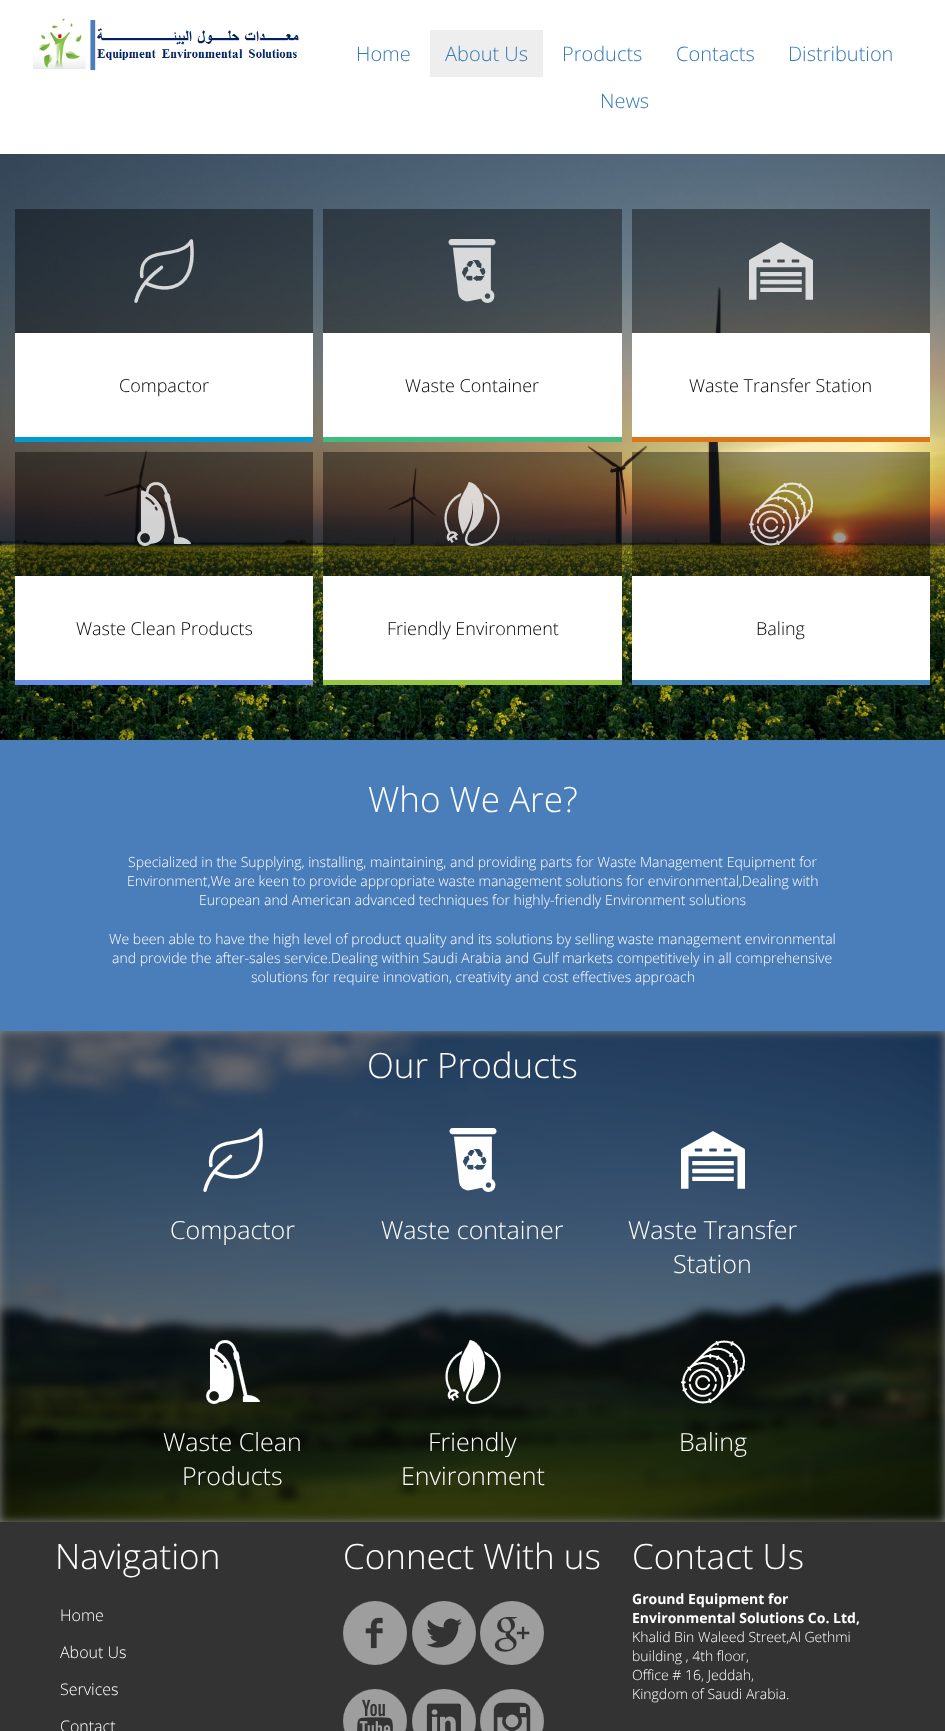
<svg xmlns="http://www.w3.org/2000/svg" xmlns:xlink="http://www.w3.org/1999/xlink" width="945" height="1731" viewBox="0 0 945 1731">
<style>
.cls-1{font:300 20px Open Sans;fill:#337ab7}
.cls-2{font:300 18px Open Sans;fill:#000000}
.cls-3{font:300 35px Open Sans;fill:#ffffff}
.cls-4{font:300 14px Open Sans;fill:#ffffff}
.cls-5{font:300 25px Open Sans;fill:#ffffff}
.cls-6{font:300 16px Open Sans;fill:#ffffff}
.cls-7{font:bold 14px Open Sans;fill:#ffffff}
</style>
<rect width="100%" height="100%" fill="#ffffff"/>
<rect fill="#808080" x="0" y="1031" width="945" height="491"/>
<image xlink:href="image0.png" x="33" y="18" width="266" height="53"/>
<rect fill="#eeeeee" x="430" y="30" width="113" height="47"/>
<image xlink:href="image1.png" x="0" y="154" width="945" height="586"/>
<rect fill="#000000" fill-opacity="0.4" x="15" y="209" width="298" height="124"/>
<image xlink:href="image2.png" x="134" y="239" width="60" height="64"/>
<rect fill="#ffffff" x="15" y="333" width="298" height="104"/>
<rect fill="#019ad2" x="15" y="437" width="298" height="5"/>
<rect fill="#000000" fill-opacity="0.4" x="323" y="209" width="299" height="124"/>
<image xlink:href="image3.png" x="448" y="239" width="48" height="64"/>
<rect fill="#ffffff" x="323" y="333" width="299" height="104"/>
<rect fill="#41bc81" x="323" y="437" width="299" height="5"/>
<rect fill="#000000" fill-opacity="0.4" x="632" y="209" width="298" height="124"/>
<image xlink:href="image4.png" x="749" y="242" width="64" height="58"/>
<rect fill="#ffffff" x="632" y="333" width="298" height="104"/>
<rect fill="#de7616" x="632" y="437" width="298" height="5"/>
<rect fill="#000000" fill-opacity="0.4" x="15" y="452" width="298" height="124"/>
<image xlink:href="image5.png" x="137" y="482" width="54" height="64"/>
<rect fill="#ffffff" x="15" y="576" width="298" height="104"/>
<rect fill="#6a8ce9" x="15" y="680" width="298" height="5"/>
<rect fill="#000000" fill-opacity="0.4" x="323" y="452" width="299" height="124"/>
<image xlink:href="image6.png" x="444" y="482" width="56" height="64"/>
<rect fill="#ffffff" x="323" y="576" width="299" height="104"/>
<rect fill="#96c742" x="323" y="680" width="299" height="5"/>
<rect fill="#000000" fill-opacity="0.4" x="632" y="452" width="298" height="124"/>
<image xlink:href="image7.png" x="749" y="482" width="64" height="64"/>
<rect fill="#ffffff" x="632" y="576" width="298" height="104"/>
<rect fill="#4386bc" x="632" y="680" width="298" height="5"/>
<rect fill="#4a7ebb" x="0" y="740" width="945" height="291"/>
<image xlink:href="image8.png" x="0" y="1031" width="945" height="491"/>
<image xlink:href="image9.png" x="203" y="1128" width="60" height="64"/>
<image xlink:href="image10.png" x="449" y="1128" width="48" height="64"/>
<image xlink:href="image11.png" x="681" y="1131" width="64" height="58"/>
<image xlink:href="image12.png" x="206" y="1340" width="54" height="64"/>
<image xlink:href="image13.png" x="445" y="1340" width="56" height="64"/>
<image xlink:href="image14.png" x="681" y="1340" width="64" height="64"/>
<rect fill="#333333" x="0" y="1522" width="945" height="209"/>
<image xlink:href="image15.png" x="343" y="1601" width="64" height="64"/>
<image xlink:href="image16.png" x="412" y="1601" width="64" height="64"/>
<image xlink:href="image17.png" x="480" y="1601" width="64" height="64"/>
<image xlink:href="image18.png" x="343" y="1689" width="64" height="42"/>
<image xlink:href="image19.png" x="412" y="1689" width="64" height="42"/>
<image xlink:href="image20.png" x="480" y="1689" width="64" height="42"/>
<text class="cls-1" x="356" y="61">Home</text>
<text class="cls-1" x="445" y="61">About Us</text>
<text class="cls-1" x="562" y="61">Products</text>
<text class="cls-1" x="676" y="61">Contacts</text>
<text class="cls-1" x="788" y="61">Distribution</text>
<text class="cls-1" x="600" y="108">News</text>
<text class="cls-2" x="119" y="392">Compactor</text>
<text class="cls-2" x="405" y="392">Waste Container</text>
<text class="cls-2" x="689" y="392">Waste Transfer Station</text>
<text class="cls-2" x="76" y="635">Waste Clean Products</text>
<text class="cls-2" x="387" y="635">Friendly Environment</text>
<text class="cls-2" x="756" y="635">Baling</text>
<text class="cls-3" x="368" y="812">Who We Are?</text>
<text class="cls-4" x="128" y="867">Specialized in the Supplying, installing, maintaining, and providing parts for Waste Management Equipment for</text>
<text class="cls-4" x="127" y="886">Environment,We are keen to provide appropriate waste management solutions for environmental,Dealing with</text>
<text class="cls-4" x="199" y="905">European and American advanced techniques for highly-friendly Environment solutions</text>
<text class="cls-4" x="109" y="944">We been able to have the high level of product quality and its solutions by selling waste management environmental</text>
<text class="cls-4" x="112" y="963">and provide the after-sales service.Dealing within Saudi Arabia and Gulf markets competitively in all comprehensive</text>
<text class="cls-4" x="251" y="982">solutions for require innovation, creativity and cost effectives approach</text>
<text class="cls-3" x="367" y="1078">Our Products</text>
<text class="cls-5" x="170" y="1239">Compactor</text>
<text class="cls-5" x="381" y="1239">Waste container</text>
<text class="cls-5" x="628" y="1239">Waste Transfer</text>
<text class="cls-5" x="673" y="1273">Station</text>
<text class="cls-5" x="163" y="1451">Waste Clean</text>
<text class="cls-5" x="182" y="1485">Products</text>
<text class="cls-5" x="428" y="1451">Friendly</text>
<text class="cls-5" x="401" y="1485">Environment</text>
<text class="cls-5" x="679" y="1451">Baling</text>
<text class="cls-3" x="55" y="1569">Navigation</text>
<text class="cls-6" x="60" y="1621">Home</text>
<text class="cls-6" x="60" y="1658">About Us</text>
<text class="cls-6" x="60" y="1695">Services</text>
<text class="cls-6" x="60" y="1732">Contact</text>
<text class="cls-3" x="343" y="1569">Connect With us</text>
<text class="cls-3" x="632" y="1569">Contact Us</text>
<text class="cls-7"><tspan x="632" y="1604">Ground Equipment for</tspan><tspan x="632" y="1623">Environmental Solutions Co. Ltd,</tspan></text>
<text class="cls-4"><tspan x="632" y="1642">Khalid Bin Waleed Street,Al Gethmi</tspan><tspan x="632" y="1661">building , 4th floor,</tspan><tspan x="632" y="1680">Office # 16, Jeddah,</tspan><tspan x="632" y="1699">Kingdom of Saudi Arabia.</tspan></text>
</svg>
